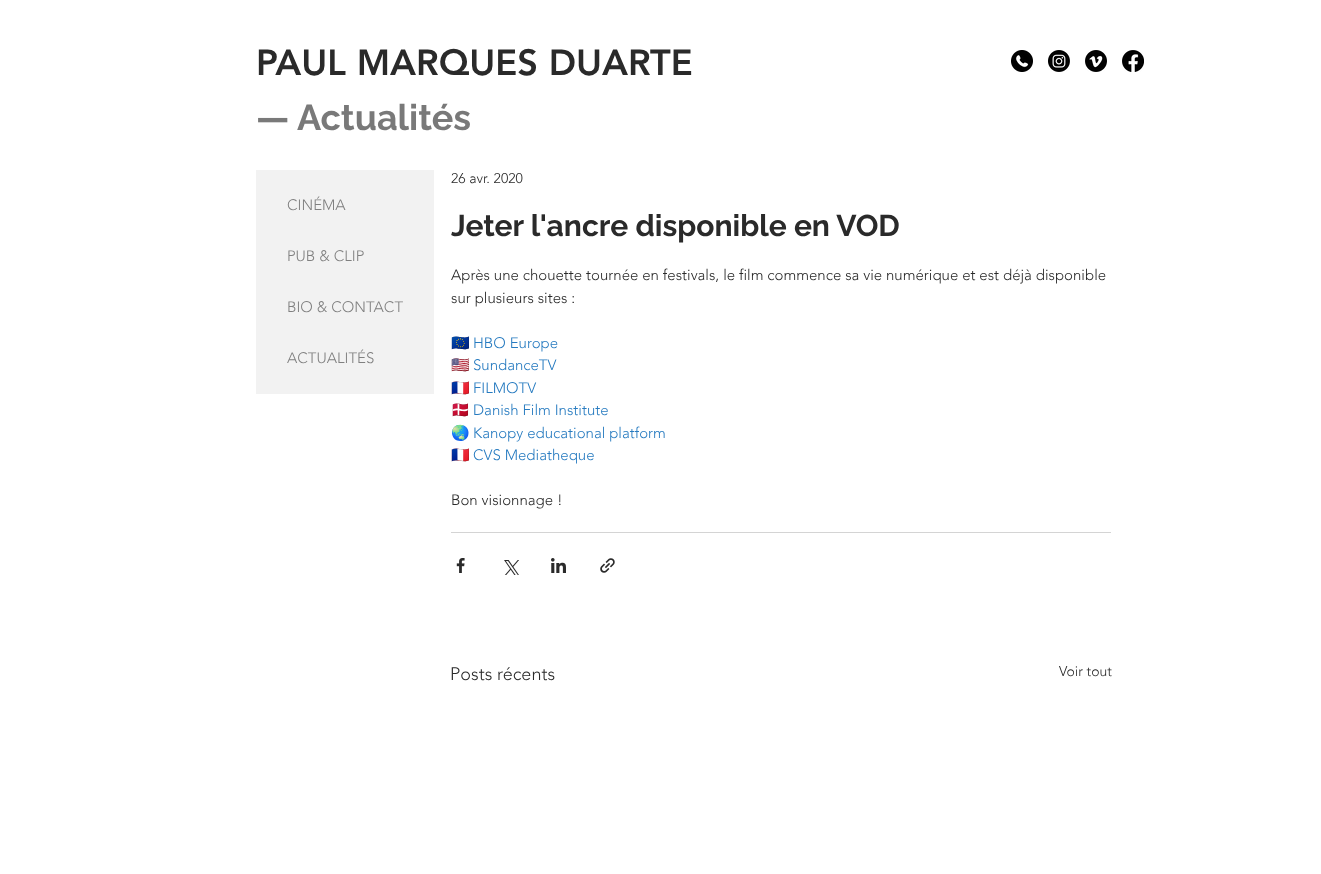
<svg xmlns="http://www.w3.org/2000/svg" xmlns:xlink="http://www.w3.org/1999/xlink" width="1321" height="874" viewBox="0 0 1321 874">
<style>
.cls-1{font:900 36px 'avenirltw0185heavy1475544';fill:#2a2a2a}
.cls-2{font:bold 36px Raleway;fill:#797979}
.cls-3{font:300 14px 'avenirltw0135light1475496';fill:#2a2a2a}
.cls-4{font:bold 30px Raleway;fill:#2a2a2a}
.cls-5{font:300 15px 'avenirltw0135light1475496';fill:#2a2a2a}
.cls-6{font:15px Noto Color Emoji;fill:#2a2a2a}
.cls-7{font:300 15px 'avenirltw0135light1475496';fill:#277bc0}
.cls-8{font:15px Noto Color Emoji;fill:#277bc0}
.cls-9{font:300 18px 'avenirltw0135light1475496';fill:#2a2a2a}
.cls-10{font:300 15px 'avenirltw0135light1475496';fill:#808080}
</style>
<rect width="100%" height="100%" fill="#ffffff"/>
<image xlink:href="image0.png" x="1011" y="50" width="22" height="22"/>
<image xlink:href="image1.png" x="1048" y="50" width="22" height="22"/>
<image xlink:href="image2.png" x="1085" y="50" width="22" height="22"/>
<image xlink:href="image3.png" x="1122" y="50" width="22" height="22"/>
<rect fill="#d4d4d4" x="451" y="532" width="660" height="1"/>
<image xlink:href="image4.png" x="456" y="558" width="9" height="15"/>
<image xlink:href="image5.png" x="504" y="560" width="15" height="15"/>
<image xlink:href="image6.png" x="551" y="558" width="15" height="15"/>
<image xlink:href="image7.png" x="600" y="558" width="15" height="15"/>
<rect fill="#f2f2f2" x="256" y="170" width="178" height="224"/>
<text class="cls-1" x="256" y="75">PAUL MARQUES DUARTE</text>
<text class="cls-2" x="256" y="130">— Actualités</text>
<text class="cls-3" x="451" y="183">26 avr. 2020</text>
<text class="cls-4" x="451" y="236">Jeter l'ancre disponible en VOD</text>
<text class="cls-5"><tspan x="451" y="280">Après une chouette tournée en festivals, le film commence sa vie numérique et est déjà disponible</tspan><tspan x="451" y="303">sur plusieurs sites :</tspan></text>
<text class="cls-6" x="451" y="348">🇪🇺</text>
<text class="cls-7" x="473" y="348">HBO Europe</text>
<text class="cls-6" x="451" y="370">🇺🇸</text>
<text class="cls-7" x="473" y="370">SundanceTV</text>
<text class="cls-6" x="451" y="393">🇫🇷</text>
<text class="cls-7" x="473" y="393">FILMOTV</text>
<text class="cls-6" x="451" y="415">🇩🇰</text>
<text class="cls-7" x="473" y="415">Danish Film Institute</text>
<text class="cls-6" x="451" y="438">🌏</text>
<text class="cls-7" x="473" y="438">Kanopy educational platform</text>
<text class="cls-8" x="451" y="460">🇫🇷</text>
<text class="cls-7" x="473" y="460">CVS Mediatheque</text>
<text class="cls-5" x="451" y="505">Bon visionnage !</text>
<text class="cls-9" x="450" y="680">Posts récents</text>
<text class="cls-3" x="1059" y="676">Voir tout</text>
<text class="cls-10" x="287" y="210">CINÉMA</text>
<text class="cls-10" x="287" y="261">PUB &amp; CLIP</text>
<text class="cls-10" x="287" y="312">BIO &amp; CONTACT</text>
<text class="cls-10" x="287" y="363">ACTUALITÉS</text>
</svg>
